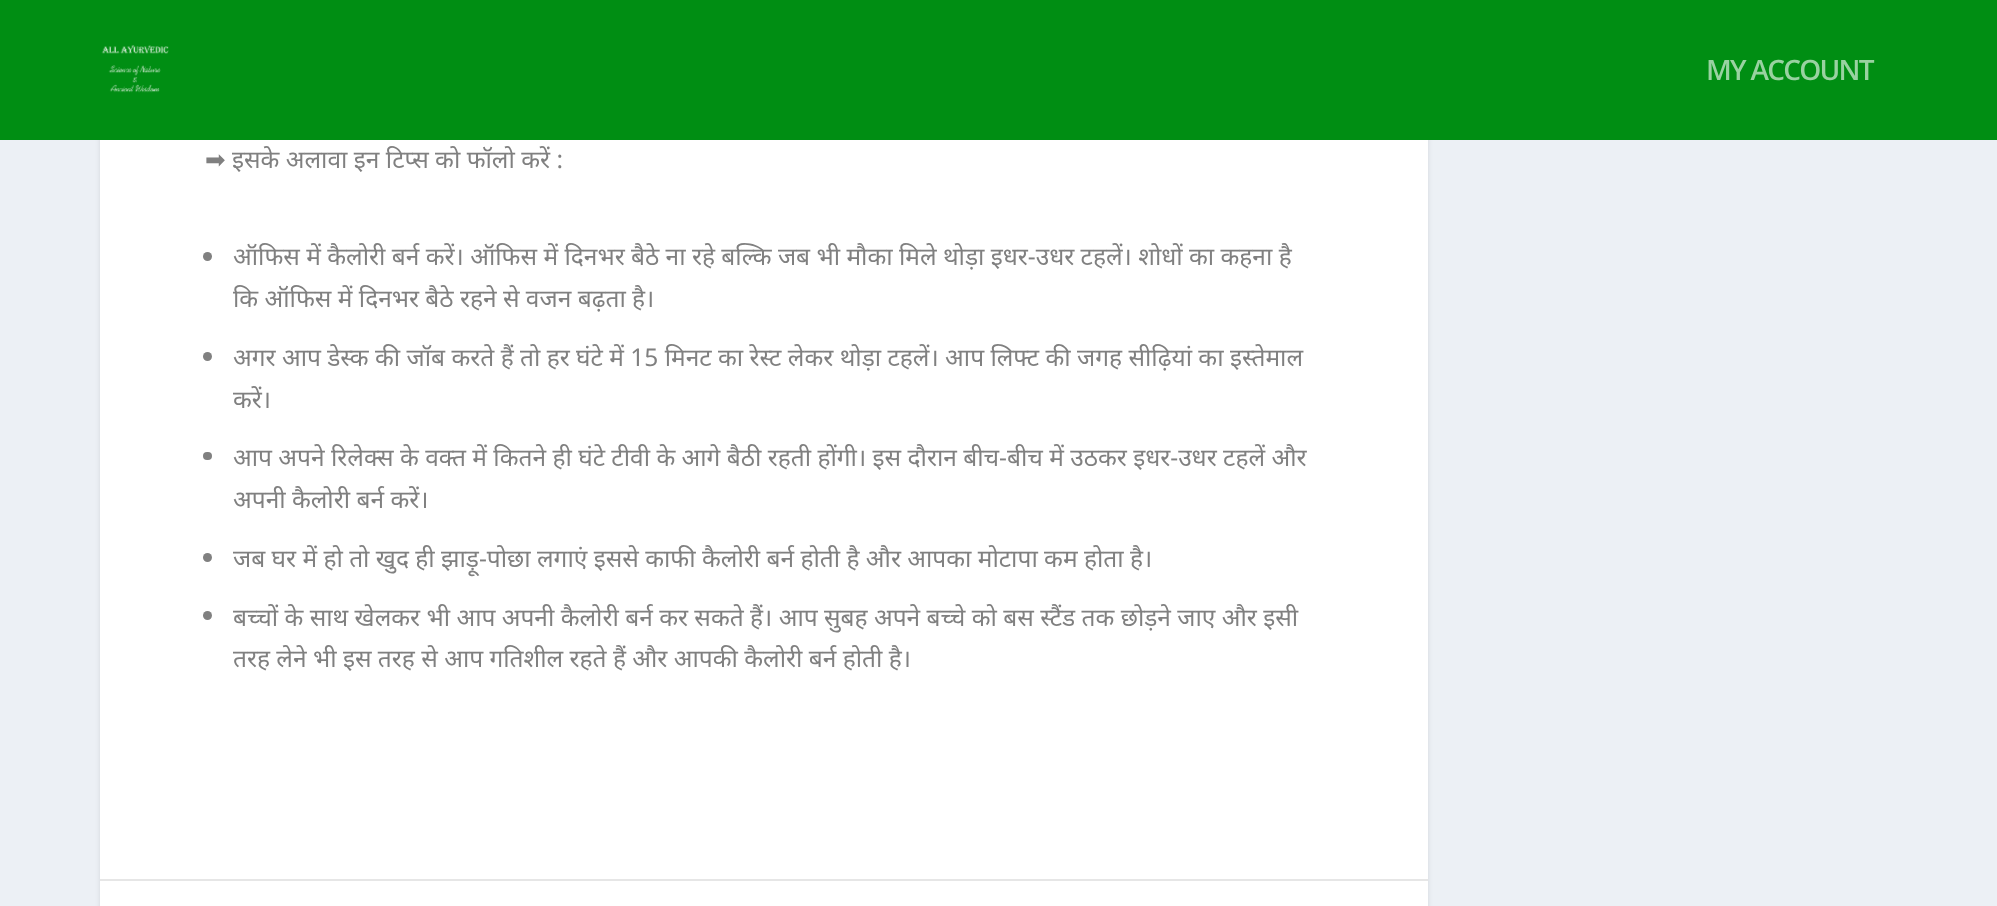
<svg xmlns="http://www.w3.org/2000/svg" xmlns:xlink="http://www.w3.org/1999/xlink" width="1997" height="906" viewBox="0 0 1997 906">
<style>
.cls-1{font:600 28px Open Sans;letter-spacing:-1.75px;fill:#99d2a1}
.cls-2{font:24.5px DejaVu Sans;fill:#808080}
.cls-3{font:24.5px Noto Sans;fill:#808080}
</style>
<rect width="100%" height="100%" fill="#ecf0f5"/>
<rect fill="#000000" fill-opacity="0.1" filter="blur(2.5px)" x="100" y="-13" width="1328" height="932" rx="5"/>
<rect fill="#008e13" x="0" y="0" width="1997" height="140"/>
<image xlink:href="image0.png" x="101" y="45" width="68" height="48"/>
<rect fill="#ffffff" x="100" y="140" width="1328" height="766"/>
<circle fill="#808080" cx="207.5" cy="256.5" r="4.5"/>
<circle fill="#808080" cx="207.5" cy="356.5" r="4.5"/>
<rect fill="#808080" x="203" y="452" width="9" height="8" rx="4"/>
<circle fill="#808080" cx="207.5" cy="557.5" r="4.5"/>
<circle fill="#808080" cx="207.5" cy="615.5" r="4.5"/>
<rect fill="#e6e6e6" x="100" y="879" width="1328" height="2"/>
<text class="cls-1" x="1706" y="80">MY ACCOUNT</text>
<text class="cls-2" x="205" y="168">➡</text>
<text class="cls-3" x="232" y="168">इसके अलावा इन टिप्स को फॉलो करें :</text>
<text class="cls-3"><tspan x="233" y="265">ऑफिस में कैलोरी बर्न करें। ऑफिस में दिनभर बैठे ना रहे बल्कि जब भी मौका मिले थोड़ा इधर-उधर टहलें। शोधों का कहना है</tspan><tspan x="233" y="307">कि ऑफिस में दिनभर बैठे रहने से वजन बढ़ता है।</tspan></text>
<text class="cls-3"><tspan x="233" y="366">अगर आप डेस्क की जॉब करते हैं तो हर घंटे में 15 मिनट का रेस्ट लेकर थोड़ा टहलें। आप लिफ्ट की जगह सीढ़ियां का इस्तेमाल</tspan><tspan x="233" y="408">करें।</tspan></text>
<text class="cls-3"><tspan x="233" y="466">आप अपने रिलेक्स के वक्त में कितने ही घंटे टीवी के आगे बैठी रहती होंगी। इस दौरान बीच-बीच में उठकर इधर-उधर टहलें और</tspan><tspan x="233" y="508">अपनी कैलोरी बर्न करें।</tspan></text>
<text class="cls-3" x="233" y="567">जब घर में हो तो खुद ही झाड़ू-पोछा लगाएं इससे काफी कैलोरी बर्न होती है और आपका मोटापा कम होता है।</text>
<text class="cls-3"><tspan x="233" y="626">बच्चों के साथ खेलकर भी आप अपनी कैलोरी बर्न कर सकते हैं। आप सुबह अपने बच्चे को बस स्टैंड तक छोड़ने जाए और इसी</tspan><tspan x="233" y="667">तरह लेने भी इस तरह से आप गतिशील रहते हैं और आपकी कैलोरी बर्न होती है।</tspan></text>
</svg>
